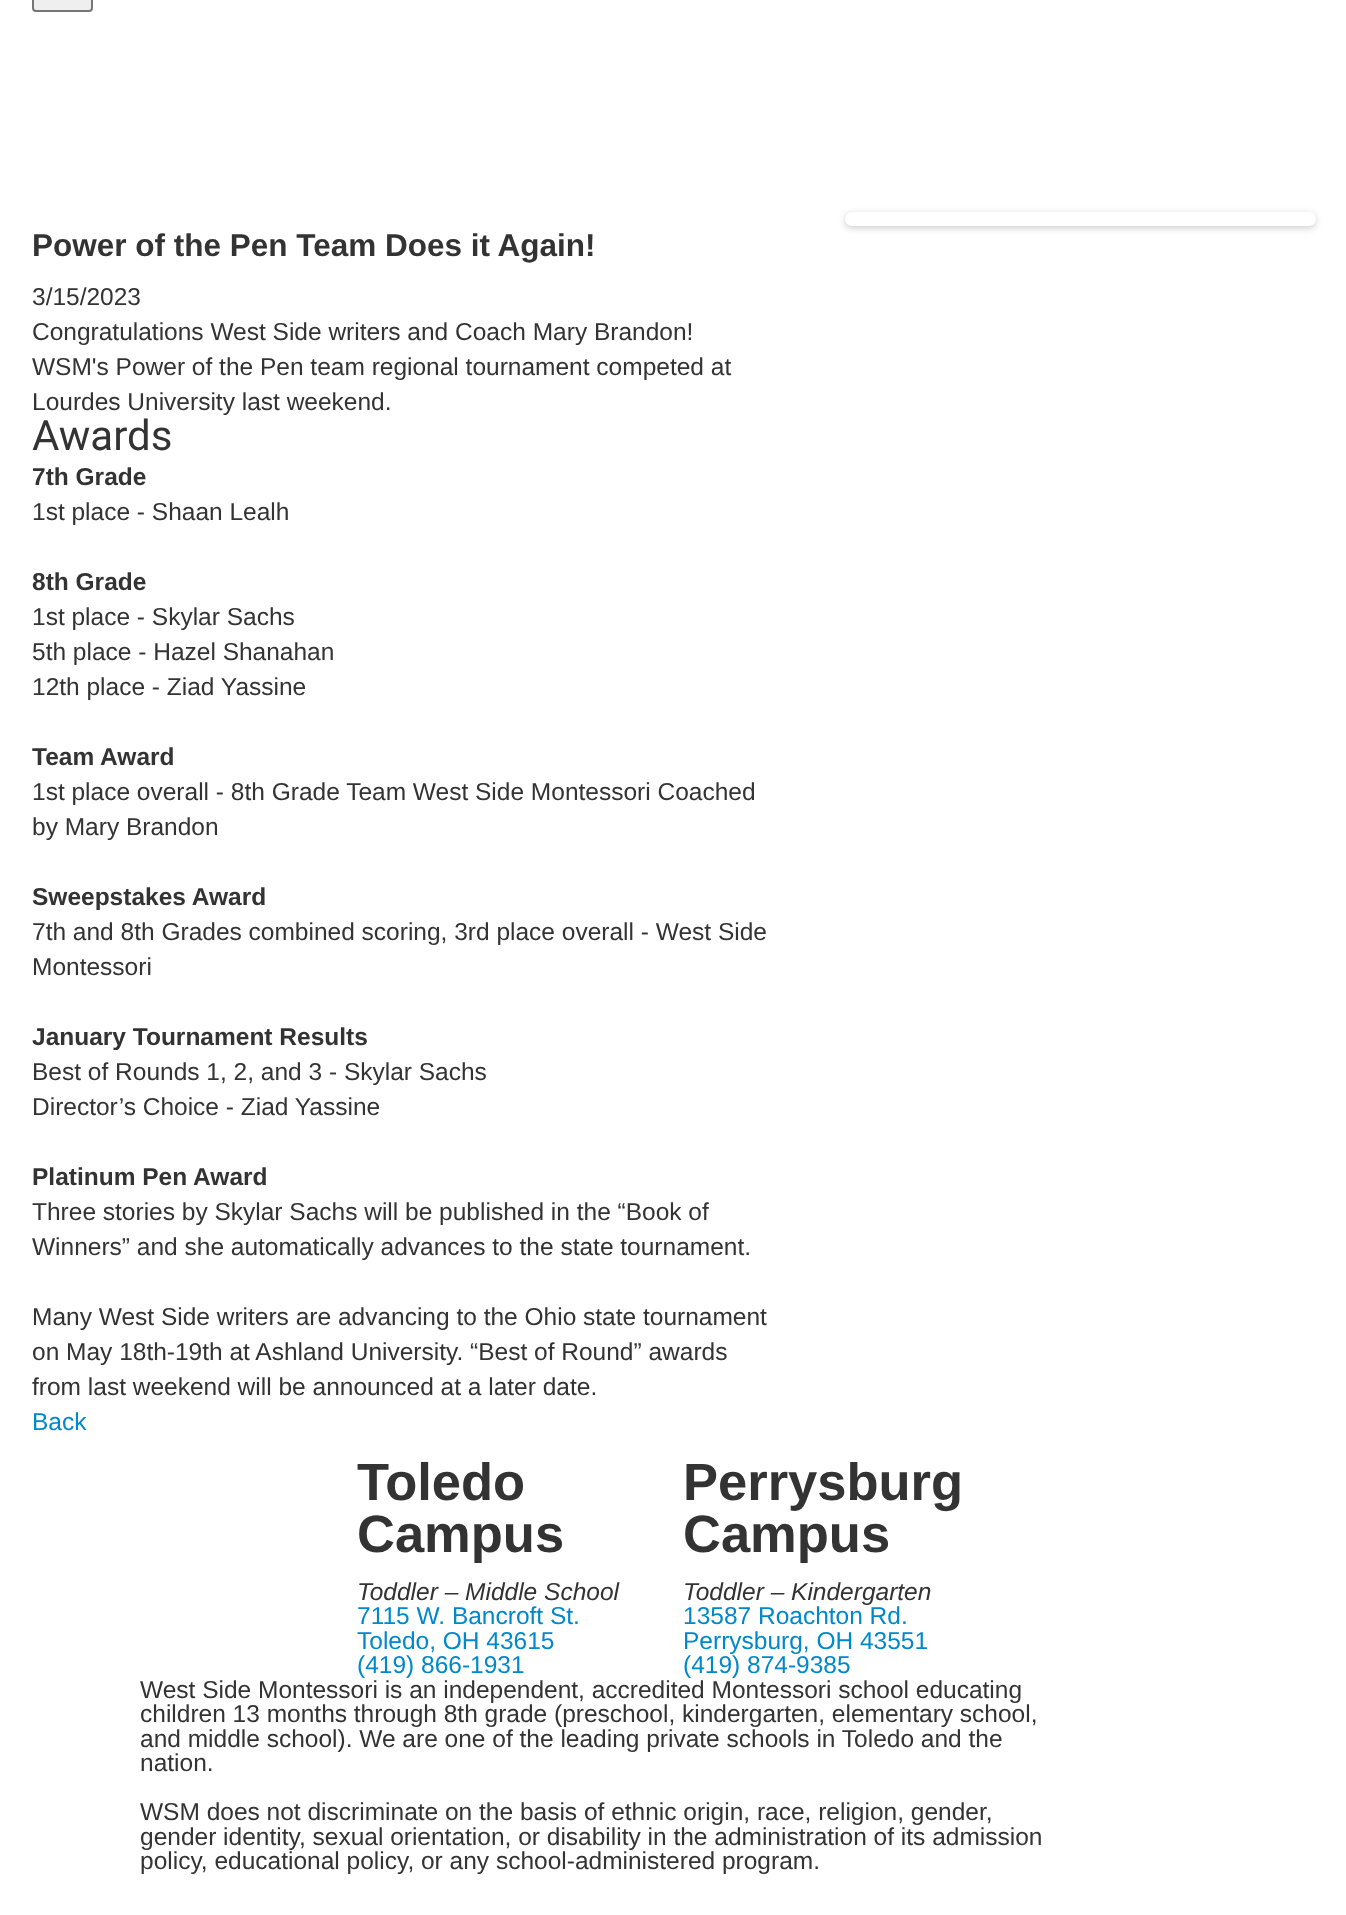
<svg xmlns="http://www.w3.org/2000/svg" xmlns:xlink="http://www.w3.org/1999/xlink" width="1346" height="1915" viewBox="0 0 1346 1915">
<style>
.cls-1{font:bold 31.5px Liberation Sans;fill:#333333}
.cls-2{font:24.5px Liberation Sans;fill:#333333}
.cls-3{font:42px Roboto;fill:#333333}
.cls-4{font:bold 24.5px Liberation Sans;fill:#333333}
.cls-5{font:24.5px Liberation Sans;fill:#0088cc}
.cls-6{font:bold 52.5px Liberation Sans;fill:#333333}
.cls-7{font:italic 24.5px Liberation Sans;fill:#333333}
</style>
<rect width="100%" height="100%" fill="#ffffff"/>
<rect fill="#efefef" stroke="#767676" stroke-width="2" x="33" y="-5" width="59" height="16" rx="3"/>
<rect fill="#000000" fill-opacity="0.2" filter="blur(3.5px)" x="845" y="214" width="471" height="14" rx="7"/>
<rect fill="#ffffff" x="845" y="212" width="471" height="14" rx="7"/>
<text class="cls-1" x="32" y="256">Power of the Pen Team Does it Again!</text>
<text class="cls-2"><tspan x="32" y="305">3/15/2023</tspan><tspan x="32" y="340">Congratulations West Side writers and Coach Mary Brandon!</tspan><tspan x="32" y="375">WSM's Power of the Pen team regional tournament competed at</tspan><tspan x="32" y="410">Lourdes University last weekend.</tspan></text>
<text class="cls-3" x="32" y="450">Awards</text>
<text class="cls-4" x="32" y="485">7th Grade</text>
<text class="cls-2" x="32" y="520">1st place - Shaan Lealh</text>
<text class="cls-4" x="32" y="590">8th Grade</text>
<text class="cls-2"><tspan x="32" y="625">1st place - Skylar Sachs</tspan><tspan x="32" y="660">5th place - Hazel Shanahan</tspan><tspan x="32" y="695">12th place - Ziad Yassine</tspan></text>
<text class="cls-4" x="32" y="765">Team Award</text>
<text class="cls-2"><tspan x="32" y="800">1st place overall - 8th Grade Team West Side Montessori Coached</tspan><tspan x="32" y="835">by Mary Brandon</tspan></text>
<text class="cls-4" x="32" y="905">Sweepstakes Award</text>
<text class="cls-2"><tspan x="32" y="940">7th and 8th Grades combined scoring, 3rd place overall - West Side</tspan><tspan x="32" y="975">Montessori</tspan></text>
<text class="cls-4" x="32" y="1045">January Tournament Results</text>
<text class="cls-2"><tspan x="32" y="1080">Best of Rounds 1, 2, and 3 - Skylar Sachs</tspan><tspan x="32" y="1115">Director’s Choice - Ziad Yassine</tspan></text>
<text class="cls-4" x="32" y="1185">Platinum Pen Award</text>
<text class="cls-2"><tspan x="32" y="1220">Three stories by Skylar Sachs will be published in the “Book of</tspan><tspan x="32" y="1255">Winners” and she automatically advances to the state tournament.</tspan></text>
<text class="cls-2"><tspan x="32" y="1325">Many West Side writers are advancing to the Ohio state tournament</tspan><tspan x="32" y="1360">on May 18th-19th at Ashland University. “Best of Round” awards</tspan><tspan x="32" y="1395">from last weekend will be announced at a later date.</tspan></text>
<text class="cls-5" x="32" y="1430">Back</text>
<text class="cls-6"><tspan x="357" y="1500">Toledo</tspan><tspan x="357" y="1552">Campus</tspan></text>
<text class="cls-7" x="357" y="1600">Toddler – Middle School</text>
<text class="cls-5"><tspan x="357" y="1624">7115 W. Bancroft St.</tspan><tspan x="357" y="1649">Toledo, OH 43615</tspan><tspan x="357" y="1673">(419) 866-1931</tspan></text>
<text class="cls-6"><tspan x="683" y="1500">Perrysburg</tspan><tspan x="683" y="1552">Campus</tspan></text>
<text class="cls-7" x="683" y="1600">Toddler – Kindergarten</text>
<text class="cls-5"><tspan x="683" y="1624">13587 Roachton Rd.</tspan><tspan x="683" y="1649">Perrysburg, OH 43551</tspan><tspan x="683" y="1673">(419) 874-9385</tspan></text>
<text class="cls-2"><tspan x="140" y="1698">West Side Montessori is an independent, accredited Montessori school educating</tspan><tspan x="140" y="1722">children 13 months through 8th grade (preschool, kindergarten, elementary school,</tspan><tspan x="140" y="1747">and middle school). We are one of the leading private schools in Toledo and the</tspan><tspan x="140" y="1771">nation.</tspan></text>
<text class="cls-2"><tspan x="140" y="1820">WSM does not discriminate on the basis of ethnic origin, race, religion, gender,</tspan><tspan x="140" y="1845">gender identity, sexual orientation, or disability in the administration of its admission</tspan><tspan x="140" y="1869">policy, educational policy, or any school-administered program.</tspan></text>
</svg>
